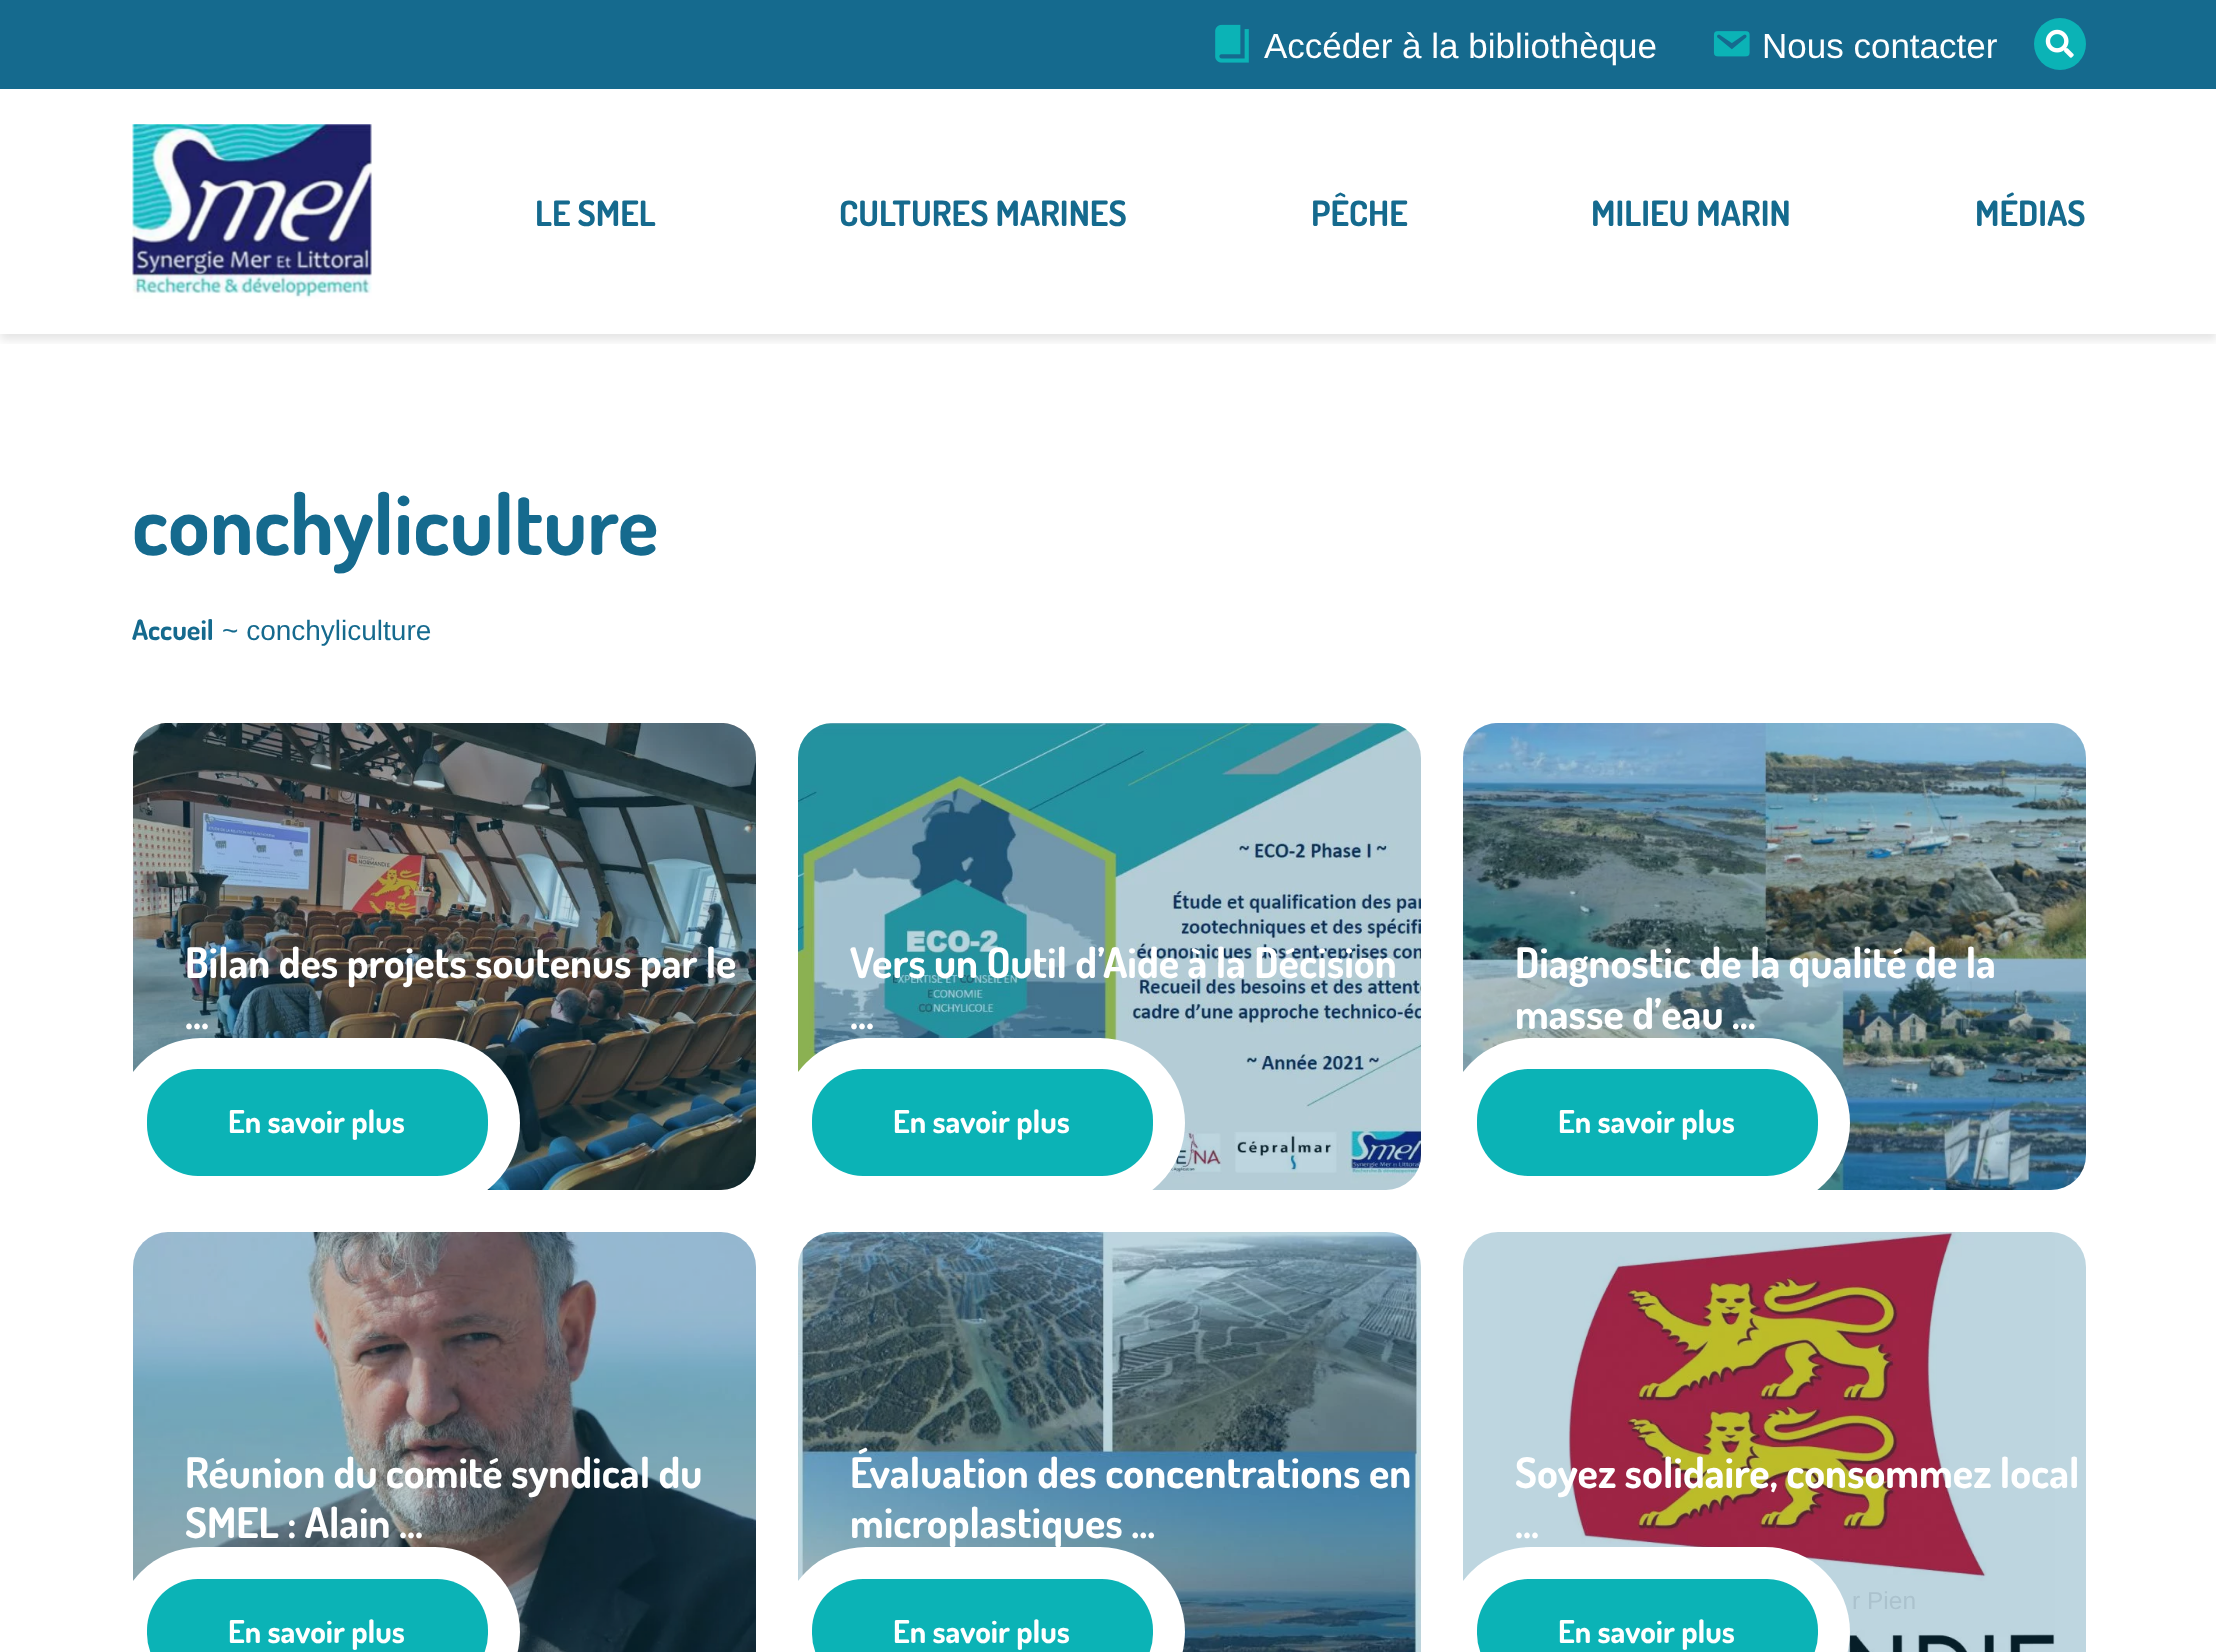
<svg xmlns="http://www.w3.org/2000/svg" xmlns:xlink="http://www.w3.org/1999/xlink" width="2216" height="1652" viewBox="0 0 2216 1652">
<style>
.cls-1{font:35px Liberation Sans;fill:#ffffff}
.cls-2{font:bold 35px Dosis;fill:#156a8e}
.cls-3{font:bold 84px Dosis;fill:#156a8e}
.cls-4{font:bold 28px Dosis;fill:#156a8e}
.cls-5{font:28px Liberation Sans;fill:#156a8e}
.cls-6{font:bold 42px Dosis;fill:#ffffff}
.cls-7{font:bold 31.5px Dosis;fill:#ffffff}
.cls-8{font:24.5px Liberation Sans;fill:#abc2cd}
</style>
<defs>
<clipPath id="clip1"><rect x="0" y="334" width="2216" height="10"/></clipPath>
<clipPath id="clip2"><rect x="133" y="723" width="623" height="467" rx="11"/></clipPath>
<clipPath id="clip3"><rect x="798" y="723" width="623" height="467" rx="11"/></clipPath>
<clipPath id="clip4"><rect x="1463" y="723" width="623" height="467" rx="11"/></clipPath>
<clipPath id="clip5"><rect x="133" y="1232" width="623" height="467" rx="11"/></clipPath>
<clipPath id="clip6"><rect x="798" y="1232" width="623" height="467" rx="11"/></clipPath>
<clipPath id="clip7"><rect x="1463" y="1232" width="623" height="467" rx="11"/></clipPath>
</defs>
<rect width="100%" height="100%" fill="#ffffff"/>
<rect fill="#156a8e" x="0" y="0" width="2216" height="89"/>
<image xlink:href="image0.png" x="1215" y="24" width="34" height="39"/>
<image xlink:href="image1.png" x="1713" y="31" width="37" height="26"/>
<circle fill="#0bb3b6" cx="2060" cy="44" r="26"/>
<image xlink:href="image2.png" x="2045" y="29" width="29" height="29"/>
<g clip-path="url(#clip1)">
<rect fill="#000000" fill-opacity="0.1" filter="blur(5px)" x="0" y="95" width="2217" height="245"/>
</g>
<image xlink:href="image3.png" x="132" y="124" width="240" height="175"/>
<image xlink:href="image4.png" x="133" y="723" width="623" height="467"/>
<rect fill="#156a8e" fill-opacity="0.28" x="133" y="723" width="623" height="467" rx="35"/>
<g clip-path="url(#clip2)">
<rect fill="#ffffff" x="116" y="1038" width="404" height="170" rx="85"/>
</g>
<rect fill="#0bb3b6" x="147" y="1069" width="341" height="107" rx="51"/>
<image xlink:href="image5.png" x="798" y="723" width="623" height="467"/>
<rect fill="#156a8e" fill-opacity="0.28" x="798" y="723" width="623" height="467" rx="35"/>
<g clip-path="url(#clip3)">
<rect fill="#ffffff" x="781" y="1038" width="404" height="170" rx="85"/>
</g>
<rect fill="#0bb3b6" x="812" y="1069" width="341" height="107" rx="51"/>
<image xlink:href="image6.png" x="1463" y="723" width="623" height="467"/>
<rect fill="#156a8e" fill-opacity="0.28" x="1463" y="723" width="623" height="467" rx="35"/>
<g clip-path="url(#clip4)">
<rect fill="#ffffff" x="1446" y="1038" width="404" height="170" rx="85"/>
</g>
<rect fill="#0bb3b6" x="1477" y="1069" width="341" height="107" rx="51"/>
<image xlink:href="image7.png" x="133" y="1232" width="623" height="420"/>
<rect fill="#156a8e" fill-opacity="0.28" x="133" y="1232" width="623" height="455" rx="35"/>
<g clip-path="url(#clip5)">
<rect fill="#ffffff" x="116" y="1547" width="404" height="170" rx="85"/>
</g>
<rect fill="#0bb3b6" x="147" y="1579" width="341" height="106" rx="51"/>
<image xlink:href="image8.png" x="798" y="1232" width="623" height="420"/>
<rect fill="#156a8e" fill-opacity="0.28" x="798" y="1232" width="623" height="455" rx="35"/>
<g clip-path="url(#clip6)">
<rect fill="#ffffff" x="781" y="1547" width="404" height="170" rx="85"/>
</g>
<rect fill="#0bb3b6" x="812" y="1579" width="341" height="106" rx="51"/>
<image xlink:href="image9.png" x="1500" y="1232" width="555" height="420"/>
<rect fill="#156a8e" fill-opacity="0.28" x="1463" y="1232" width="623" height="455" rx="35"/>
<g clip-path="url(#clip7)">
<rect fill="#ffffff" x="1446" y="1547" width="404" height="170" rx="85"/>
</g>
<rect fill="#0bb3b6" x="1477" y="1579" width="341" height="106" rx="51"/>
<text class="cls-1" x="1264" y="58">Accéder à la bibliothèque</text>
<text class="cls-1" x="1762" y="58">Nous contacter</text>
<text class="cls-2" x="535" y="226">LE SMEL</text>
<text class="cls-2" x="839" y="226">CULTURES MARINES</text>
<text class="cls-2" x="1311" y="226">PÊCHE</text>
<text class="cls-2" x="1591" y="226">MILIEU MARIN</text>
<text class="cls-2" x="1975" y="226">MÉDIAS</text>
<text class="cls-3" x="132" y="555">conchyliculture</text>
<text class="cls-4" x="132" y="640">Accueil</text>
<text class="cls-5" x="222" y="640">~ conchyliculture</text>
<text class="cls-6"><tspan x="185" y="978">Bilan des projets soutenus par le</tspan><tspan x="185" y="1029">...</tspan></text>
<text class="cls-7" x="228" y="1133">En savoir plus</text>
<text class="cls-6"><tspan x="850" y="978">Vers un Outil d’Aide à la Décision</tspan><tspan x="850" y="1029">...</tspan></text>
<text class="cls-7" x="893" y="1133">En savoir plus</text>
<text class="cls-6"><tspan x="1515" y="978">Diagnostic de la qualité de la</tspan><tspan x="1515" y="1029">masse d’eau ...</tspan></text>
<text class="cls-7" x="1558" y="1133">En savoir plus</text>
<text class="cls-6"><tspan x="185" y="1488">Réunion du comité syndical du</tspan><tspan x="185" y="1538">SMEL : Alain ...</tspan></text>
<text class="cls-7" x="228" y="1643">En savoir plus</text>
<text class="cls-6"><tspan x="850" y="1488">Évaluation des concentrations en</tspan><tspan x="850" y="1538">microplastiques ...</tspan></text>
<text class="cls-7" x="893" y="1643">En savoir plus</text>
<text class="cls-6"><tspan x="1515" y="1488">Soyez solidaire, consommez local</tspan><tspan x="1515" y="1538">...</tspan></text>
<text class="cls-8" x="1852" y="1609">r Pien</text>
<text class="cls-7" x="1558" y="1643">En savoir plus</text>
</svg>
